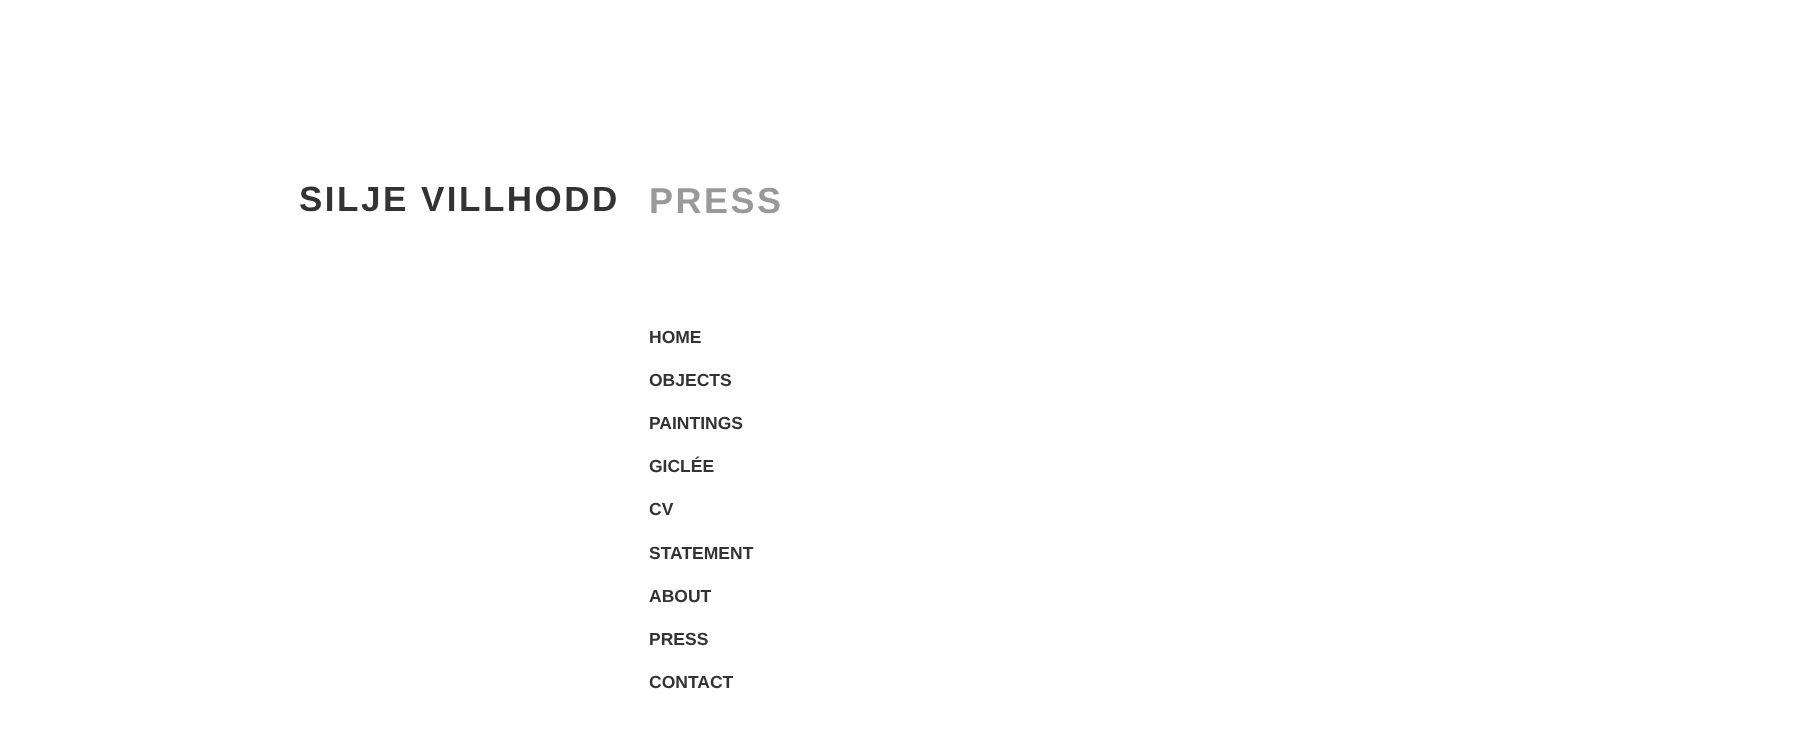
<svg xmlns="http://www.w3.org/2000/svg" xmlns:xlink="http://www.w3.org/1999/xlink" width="1797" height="733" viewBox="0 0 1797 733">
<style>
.cls-1{font:bold 35px Liberation Sans;letter-spacing:2.5px;fill:#333333}
.cls-2{font:bold 36px Liberation Sans;letter-spacing:2.5px;fill:#999999}
.cls-3{font:bold 17.5px Liberation Sans;fill:#333333}
</style>
<rect width="100%" height="100%" fill="#ffffff"/>
<text class="cls-1" x="299" y="211">SILJE VILLHODD</text>
<text class="cls-2" x="649" y="213">PRESS</text>
<text class="cls-3" x="649" y="343">HOME</text>
<text class="cls-3" x="649" y="386">OBJECTS</text>
<text class="cls-3" x="649" y="429">PAINTINGS</text>
<text class="cls-3" x="649" y="472">GICLÉE</text>
<text class="cls-3" x="649" y="515">CV</text>
<text class="cls-3" x="649" y="559">STATEMENT</text>
<text class="cls-3" x="649" y="602">ABOUT</text>
<text class="cls-3" x="649" y="645">PRESS</text>
<text class="cls-3" x="649" y="688">CONTACT</text>
</svg>
